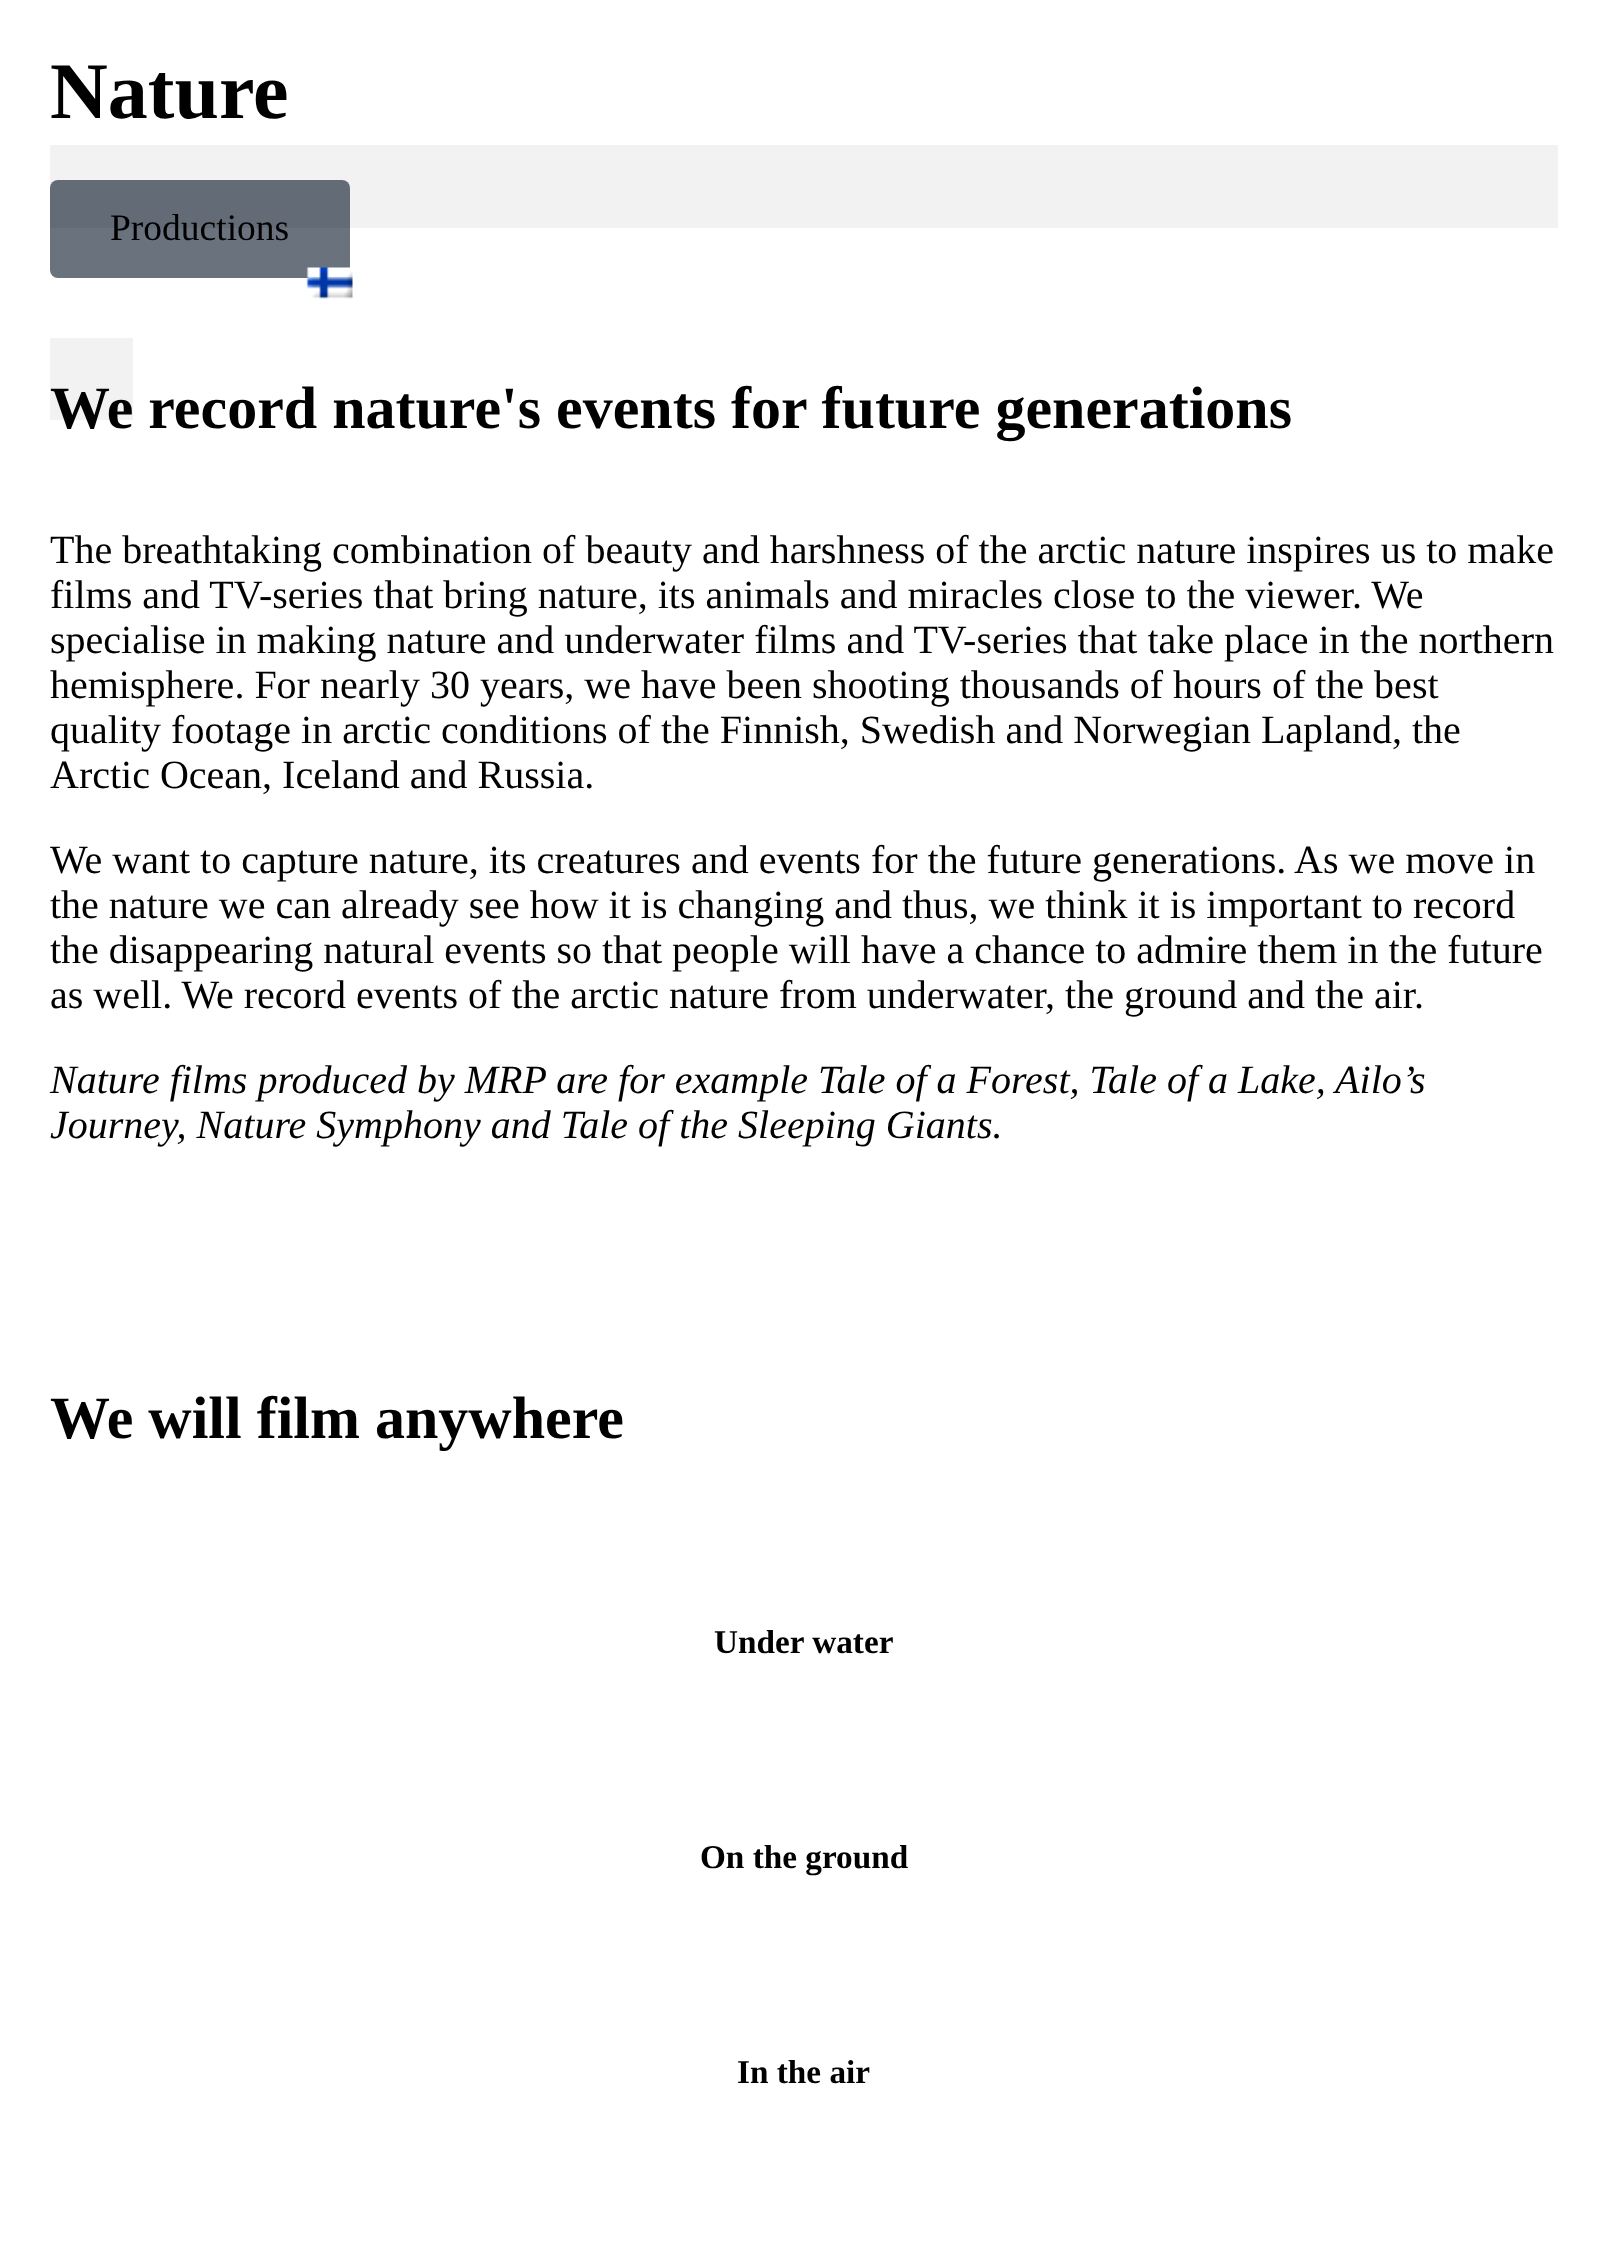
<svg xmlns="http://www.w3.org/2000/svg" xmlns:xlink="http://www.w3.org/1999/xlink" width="1606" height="2262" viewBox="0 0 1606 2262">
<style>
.cls-1{font:bold 80px Liberation Serif;fill:#000000}
.cls-2{font:37.5px Liberation Serif;fill:#000000}
.cls-3{font:bold 60px Liberation Serif;fill:#000000}
.cls-4{font:40px Liberation Serif;fill:#000000}
.cls-5{font:italic 40px Liberation Serif;fill:#000000}
.cls-6{font:bold 33.25px Liberation Serif;fill:#000000}
</style>
<rect width="100%" height="100%" fill="#ffffff"/>
<rect fill="#69727d" x="50" y="180" width="300" height="98" rx="8"/>
<rect fill="#000000" fill-opacity="0.05" x="50" y="145" width="1508" height="83"/>
<image xlink:href="image0.png" x="306" y="267" width="47" height="32"/>
<rect fill="#000000" fill-opacity="0.05" x="50" y="338" width="83" height="82"/>
<text class="cls-1" x="50" y="118">Nature</text>
<text class="cls-2" x="110" y="240">Productions</text>
<text class="cls-3" x="50" y="428">We record nature's events for future generations</text>
<text class="cls-4"><tspan x="50" y="563">The breathtaking combination of beauty and harshness of the arctic nature inspires us to make</tspan><tspan x="50" y="608">films and TV-series that bring nature, its animals and miracles close to the viewer. We</tspan><tspan x="50" y="653">specialise in making nature and underwater films and TV-series that take place in the northern</tspan><tspan x="50" y="698">hemisphere. For nearly 30 years, we have been shooting thousands of hours of the best</tspan><tspan x="50" y="743">quality footage in arctic conditions of the Finnish, Swedish and Norwegian Lapland, the</tspan><tspan x="50" y="788">Arctic Ocean, Iceland and Russia.</tspan></text>
<text class="cls-4"><tspan x="50" y="873">We want to capture nature, its creatures and events for the future generations. As we move in</tspan><tspan x="50" y="918">the nature we can already see how it is changing and thus, we think it is important to record</tspan><tspan x="50" y="963">the disappearing natural events so that people will have a chance to admire them in the future</tspan><tspan x="50" y="1008">as well. We record events of the arctic nature from underwater, the ground and the air.</tspan></text>
<text class="cls-5"><tspan x="50" y="1093">Nature films produced by MRP are for example Tale of a Forest, Tale of a Lake, Ailo’s</tspan><tspan x="50" y="1138">Journey, Nature Symphony and Tale of the Sleeping Giants.</tspan></text>
<text class="cls-3" x="50" y="1438">We will film anywhere</text>
<text class="cls-6" x="714" y="1653">Under water</text>
<text class="cls-6" x="700" y="1868">On the ground</text>
<text class="cls-6" x="737" y="2083">In the air</text>
</svg>
